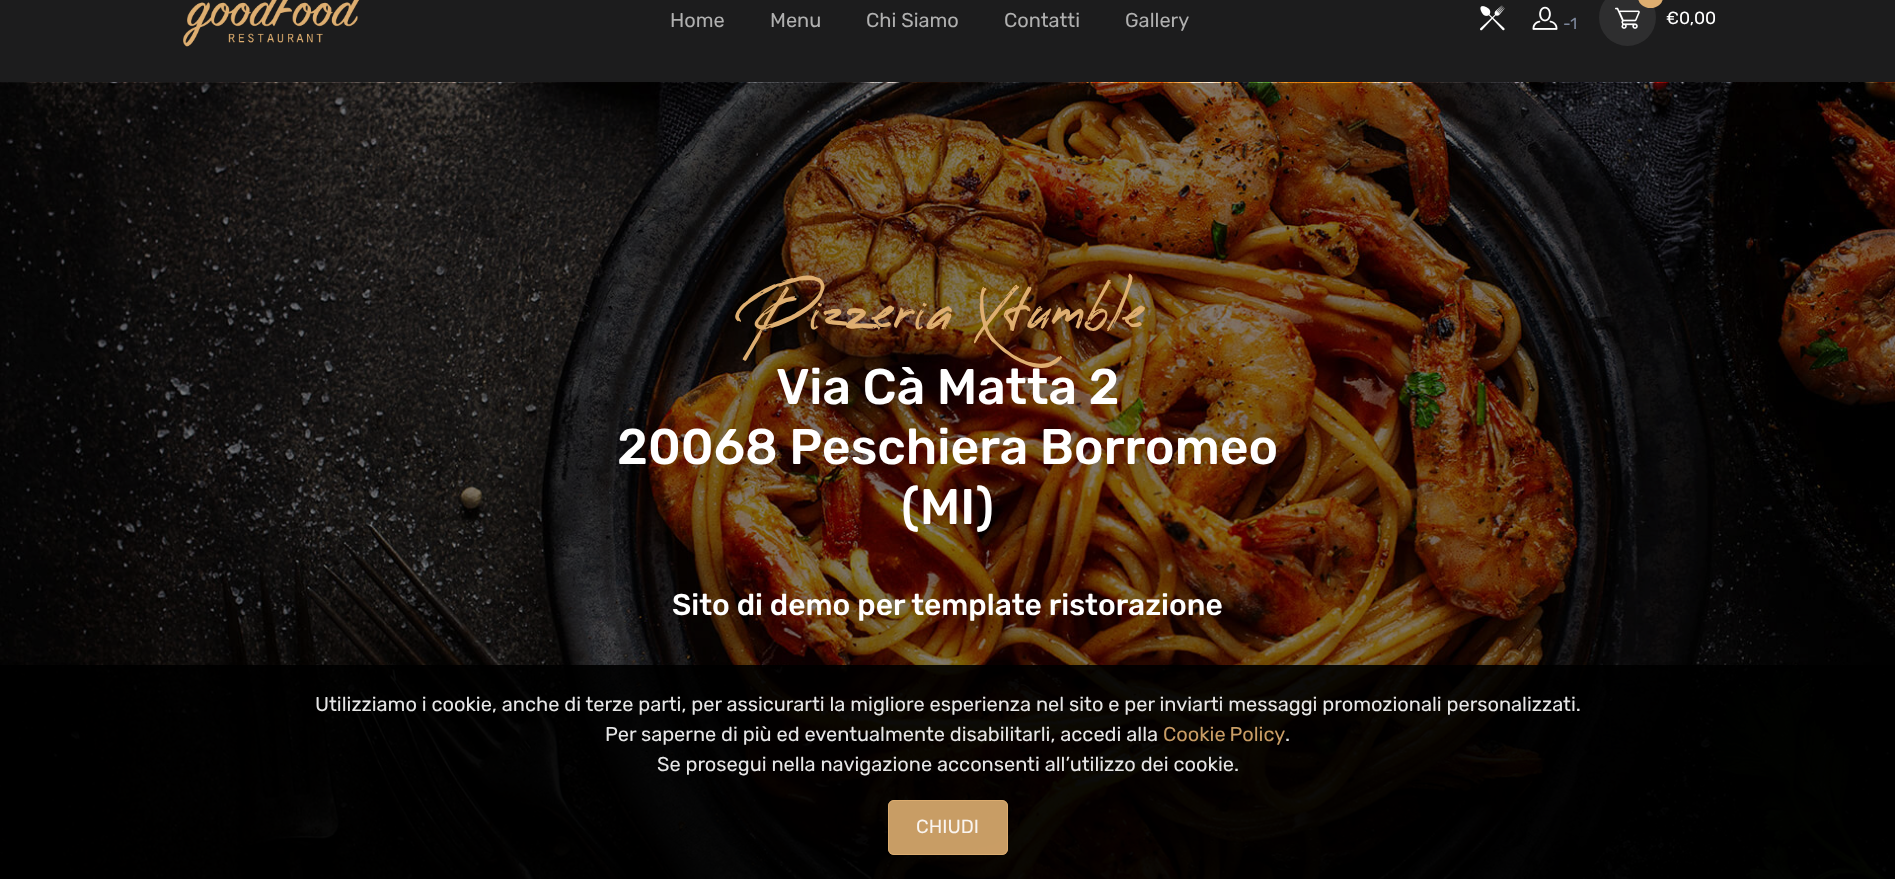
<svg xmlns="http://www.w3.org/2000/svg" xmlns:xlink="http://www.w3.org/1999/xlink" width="1895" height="879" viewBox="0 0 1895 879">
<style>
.cls-1{font:20px Rubik;fill:#b0b0b0}
.cls-2{font:16px Rubik;fill:#7d879c}
.cls-3{font:17.5px Rubik;fill:#ffffff}
.cls-4{font:50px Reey;fill:#deae70}
.cls-5{font:500 50px Rubik;fill:#ffffff}
.cls-6{font:500 30px Rubik;fill:#ffffff}
.cls-7{font:20px Rubik;fill:#e6e6e6}
.cls-8{font:20px Rubik;fill:#c99d65}
.cls-9{font:19px Rubik;fill:#faf5f0}
</style>
<rect width="100%" height="100%" fill="#1c1c1d"/>
<image xlink:href="image0.png" x="183" y="0" width="176" height="47"/>
<image xlink:href="image1.png" x="1480" y="5" width="25" height="26"/>
<image xlink:href="image2.png" x="1532" y="6" width="26" height="24"/>
<circle fill="#2e2e2f" cx="1627.5" cy="17.5" r="28.5"/>
<image xlink:href="image3.png" x="1615" y="7" width="25" height="22"/>
<rect fill="#deae70" x="1638" y="-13" width="25" height="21" rx="12.5"/>
<image xlink:href="image4.png" x="0" y="82" width="1895" height="797"/>
<rect fill="#000000" fill-opacity="0.9" x="0" y="665" width="1895" height="214"/>
<rect fill="#deae70" fill-opacity="0.9" x="888" y="800" width="120" height="55" rx="6"/>
<rect fill="none" stroke="#deae70" stroke-opacity="0.9" x="888.5" y="800.5" width="119" height="54" rx="5.5"/>
<text class="cls-1" x="670" y="27">Home</text>
<text class="cls-1" x="770" y="27">Menu</text>
<text class="cls-1" x="866" y="27">Chi Siamo</text>
<text class="cls-1" x="1004" y="27">Contatti</text>
<text class="cls-1" x="1125" y="27">Gallery</text>
<text class="cls-2" x="1563" y="29">-1</text>
<text class="cls-3" x="1666" y="24">€0,00</text>
<text class="cls-4" x="749" y="330">Pizzeria Xtumble</text>
<text class="cls-5" x="776" y="404">Via Cà Matta 2</text>
<text class="cls-5" x="617" y="464">20068 Peschiera Borromeo</text>
<text class="cls-5" x="901" y="524">(MI)</text>
<text class="cls-6" x="672" y="615">Sito di demo per template ristorazione</text>
<text class="cls-7" x="315" y="711">Utilizziamo i cookie, anche di terze parti, per assicurarti la migliore esperienza nel sito e per inviarti messaggi promozionali personalizzati.</text>
<text class="cls-7" x="605" y="741">Per saperne di più ed eventualmente disabilitarli, accedi alla</text>
<text class="cls-8" x="1163" y="741" word-spacing="-1">Cookie Policy</text>
<text class="cls-7" x="1285" y="741">.</text>
<text class="cls-7" x="657" y="771">Se prosegui nella navigazione acconsenti all’utilizzo dei cookie.</text>
<text class="cls-9" x="916" y="833">CHIUDI</text>
</svg>
